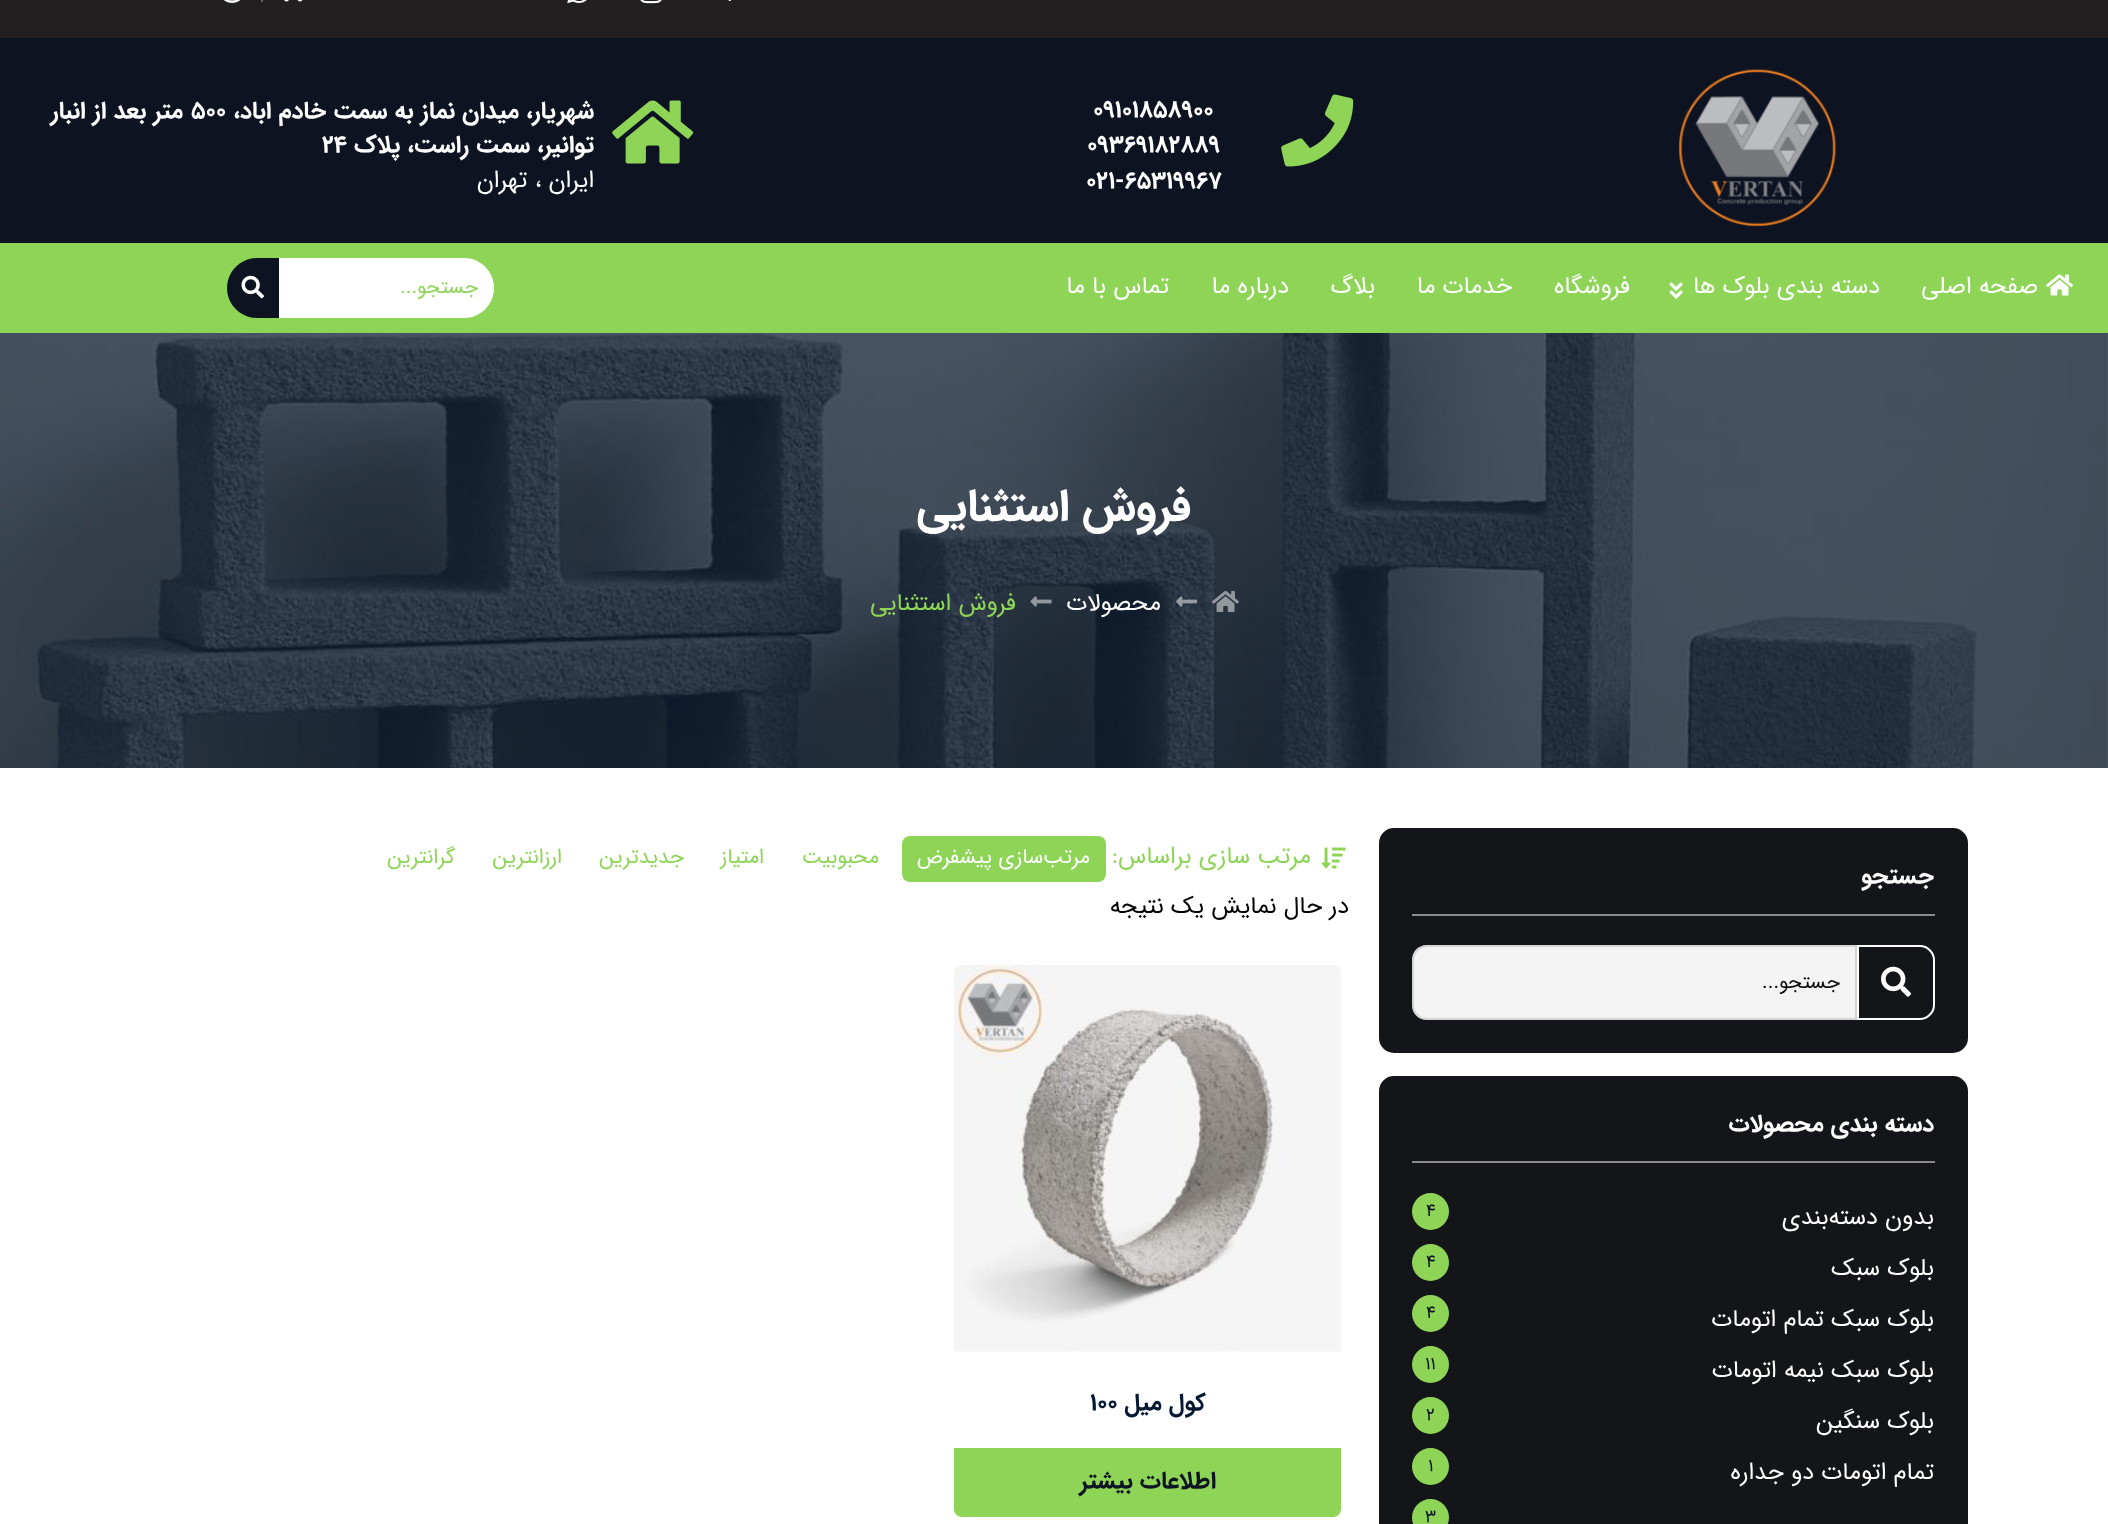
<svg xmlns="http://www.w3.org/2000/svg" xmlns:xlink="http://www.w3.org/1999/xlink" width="2108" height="1524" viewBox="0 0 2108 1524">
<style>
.cls-1{font:bold 24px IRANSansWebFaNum;fill:#fffefe}
.cls-2{font:bold 24px IRANSansWebFaNum;direction:rtl;fill:#fffefe}
.cls-3{font:24px IRANSansWebFaNum;direction:rtl;fill:#fffefe}
.cls-4{font:20px IRANSansWebFaNum;direction:rtl;fill:#8ed557}
.cls-5{font:bold 45px IRANSansWebFaNum;direction:rtl;fill:#fffefe}
.cls-6{font:24px IRANSansWebFaNum;direction:rtl;fill:#8ed557}
.cls-7{font:20px IRANSansWebFaNum;direction:rtl;fill:#0b0c0f}
.cls-8{font:18px IRANSansWebFaNum;fill:#0d1321}
.cls-9{font:21px IRANSansWebFaNum;direction:rtl;fill:#fffefe}
.cls-10{font:21px IRANSansWebFaNum;direction:rtl;fill:#8ed557}
.cls-11{font:24px IRANSansWebFaNum;direction:rtl;fill:#000000}
.cls-12{font:bold 24px IRANSansWebFaNum;direction:rtl;fill:#051934}
.cls-13{font:bold 24px IRANSansWebFaNum;fill:#051934}
.cls-14{font:bold 24px IRANSansWebFaNum;direction:rtl;fill:#0d1321}
</style>
<rect width="100%" height="100%" fill="#ffffff"/>
<rect fill="#211f1f" x="0" y="0" width="2108" height="38"/>
<image xlink:href="image0.png" x="728" y="0" width="3" height="1"/>
<image xlink:href="image1.png" x="640" y="0" width="22" height="4"/>
<image xlink:href="image2.png" x="567" y="0" width="20" height="4"/>
<rect fill="#646262" x="261" y="0" width="2" height="2"/>
<image xlink:href="image3.png" x="284" y="0" width="19" height="2"/>
<image xlink:href="image4.png" x="224" y="0" width="17" height="3"/>
<rect fill="#0d1321" x="0" y="38" width="2108" height="205"/>
<image xlink:href="image5.png" x="1678" y="68" width="159" height="159"/>
<image xlink:href="image6.png" x="1281" y="94" width="73" height="73"/>
<image xlink:href="image7.png" x="612" y="100" width="82" height="64"/>
<rect fill="#8ed557" x="0" y="243" width="2108" height="90"/>
<image xlink:href="image8.png" x="2046" y="274" width="27" height="22"/>
<image xlink:href="image9.png" x="1669" y="282" width="14" height="17"/>
<path fill="#ffffff" d="M276 258H464C480.5 258 494 271.5 494 288C494 304.5 480.5 318 464 318H276Z"/>
<path fill="#0d1321" d="M257 258H279V318H257C240.5 318 227 304.5 227 288C227 271.5 240.5 258 257 258Z"/>
<image xlink:href="image10.png" x="241" y="275" width="23" height="24"/>
<image xlink:href="image11.png" x="0" y="333" width="2108" height="435"/>
<image xlink:href="image12.png" x="1212" y="591" width="27" height="21"/>
<image xlink:href="image13.png" x="1176" y="596" width="22" height="11"/>
<image xlink:href="image14.png" x="1030" y="596" width="22" height="11"/>
<rect fill="#141518" x="1379" y="828" width="589" height="225" rx="15"/>
<rect fill="#8a8a8c" x="1412" y="914" width="523" height="2"/>
<path fill="none" stroke="#ffffff" stroke-width="2" d="M1858 946H1920C1927.5 946 1934 952.5 1934 960V1005C1934 1012.5 1927.5 1019 1920 1019H1858Z"/>
<image xlink:href="image15.png" x="1881" y="966" width="30" height="31"/>
<path fill="#f3f3f3" d="M1427 945H1857V1020H1427C1418.5 1020 1412 1013.5 1412 1005V960C1412 951.5 1418.5 945 1427 945Z"/>
<path fill="none" stroke="#a7a7a7" stroke-opacity="0.4" stroke-width="2" d="M1427 946H1856V1019H1427C1419.5 1019 1413 1012.5 1413 1005V960C1413 952.5 1419.5 946 1427 946Z"/>
<rect fill="#141518" x="1379" y="1076" width="589" height="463" rx="15"/>
<rect fill="#8a8a8c" x="1412" y="1161" width="523" height="2"/>
<circle fill="#8ed557" cx="1430.5" cy="1211.5" r="18.5"/>
<circle fill="#8ed557" cx="1430.5" cy="1262.5" r="18.5"/>
<circle fill="#8ed557" cx="1430.5" cy="1313.5" r="18.5"/>
<circle fill="#8ed557" cx="1430.5" cy="1364.5" r="18.5"/>
<circle fill="#8ed557" cx="1430.5" cy="1415.5" r="18.5"/>
<circle fill="#8ed557" cx="1430.5" cy="1466.5" r="18.5"/>
<circle fill="#8ed557" cx="1430.5" cy="1517.5" r="18.5"/>
<image xlink:href="image16.png" x="1321" y="847" width="25" height="22"/>
<rect fill="#8ed557" x="902" y="836" width="204" height="46" rx="8"/>
<image xlink:href="image17.png" x="954" y="964" width="387" height="388"/>
<path fill="#8ed557" d="M954 1448H1341V1509C1341 1513.5 1337.5 1517 1333 1517H962C957.5 1517 954 1513.5 954 1509Z"/>
<text class="cls-1" x="1093" y="117">09101858900</text>
<text class="cls-1" x="1087" y="152">09369182889</text>
<text class="cls-1" x="1086" y="188">021-65319967</text>
<text class="cls-2" x="594" y="118">شهریار، میدان نماز به سمت خادم اباد،</text>
<text class="cls-1" x="191" y="118">500</text>
<text class="cls-2" x="183" y="118">متر بعد از انبار</text>
<text class="cls-2" x="594" y="152">توانیر، سمت راست، پلاک</text>
<text class="cls-1" x="322" y="152">24</text>
<text class="cls-3" x="594" y="187">ایران ، تهران</text>
<text class="cls-3" x="2038" y="293">صفحه اصلی</text>
<text class="cls-3" x="1880" y="293">دسته بندی بلوک ها</text>
<text class="cls-3" x="1630" y="293">فروشگاه</text>
<text class="cls-3" x="1512" y="293">خدمات ما</text>
<text class="cls-3" x="1375" y="293">بلاگ</text>
<text class="cls-3" x="1289" y="293">درباره ما</text>
<text class="cls-3" x="1169" y="293">تماس با ما</text>
<text class="cls-4" x="478" y="293">جستجو...</text>
<text class="cls-5" x="1191" y="520">فروش استثنایی</text>
<text class="cls-3" x="1161" y="610">محصولات</text>
<text class="cls-6" x="1016" y="610">فروش استثنایی</text>
<text class="cls-2" x="1934" y="883">جستجو</text>
<text class="cls-7" x="1840" y="988">جستجو...</text>
<text class="cls-2" x="1934" y="1131">دسته بندی محصولات</text>
<text class="cls-3" x="1934" y="1224">بدون دسته‌بندی</text>
<text class="cls-8" x="1426" y="1216">4</text>
<text class="cls-3" x="1934" y="1275">بلوک سبک</text>
<text class="cls-8" x="1426" y="1267">4</text>
<text class="cls-3" x="1934" y="1326">بلوک سبک تمام اتومات</text>
<text class="cls-8" x="1426" y="1318">4</text>
<text class="cls-3" x="1934" y="1377">بلوک سبک نیمه اتومات</text>
<text class="cls-8" x="1425" y="1369">11</text>
<text class="cls-3" x="1934" y="1428">بلوک سنگین</text>
<text class="cls-8" x="1426" y="1420">2</text>
<text class="cls-3" x="1934" y="1479">تمام اتومات دو جداره</text>
<text class="cls-8" x="1428" y="1471">1</text>
<text class="cls-8" x="1425" y="1522">3</text>
<text class="cls-6" x="1311" y="863">مرتب سازی براساس:</text>
<text class="cls-9" x="1090" y="863">مرتب‌سازی پیشفرض</text>
<text class="cls-10" x="879" y="863">محبوبیت</text>
<text class="cls-10" x="764" y="863">امتیاز</text>
<text class="cls-10" x="684" y="863">جدیدترین</text>
<text class="cls-10" x="562" y="863">ارزانترین</text>
<text class="cls-10" x="455" y="863">گرانترین</text>
<text class="cls-11" x="1349" y="913">در حال نمایش یک نتیجه</text>
<text class="cls-12" x="1206" y="1410">کول میل</text>
<text class="cls-13" x="1090" y="1410">100</text>
<text class="cls-14" x="1216" y="1488">اطلاعات بیشتر</text>
</svg>
